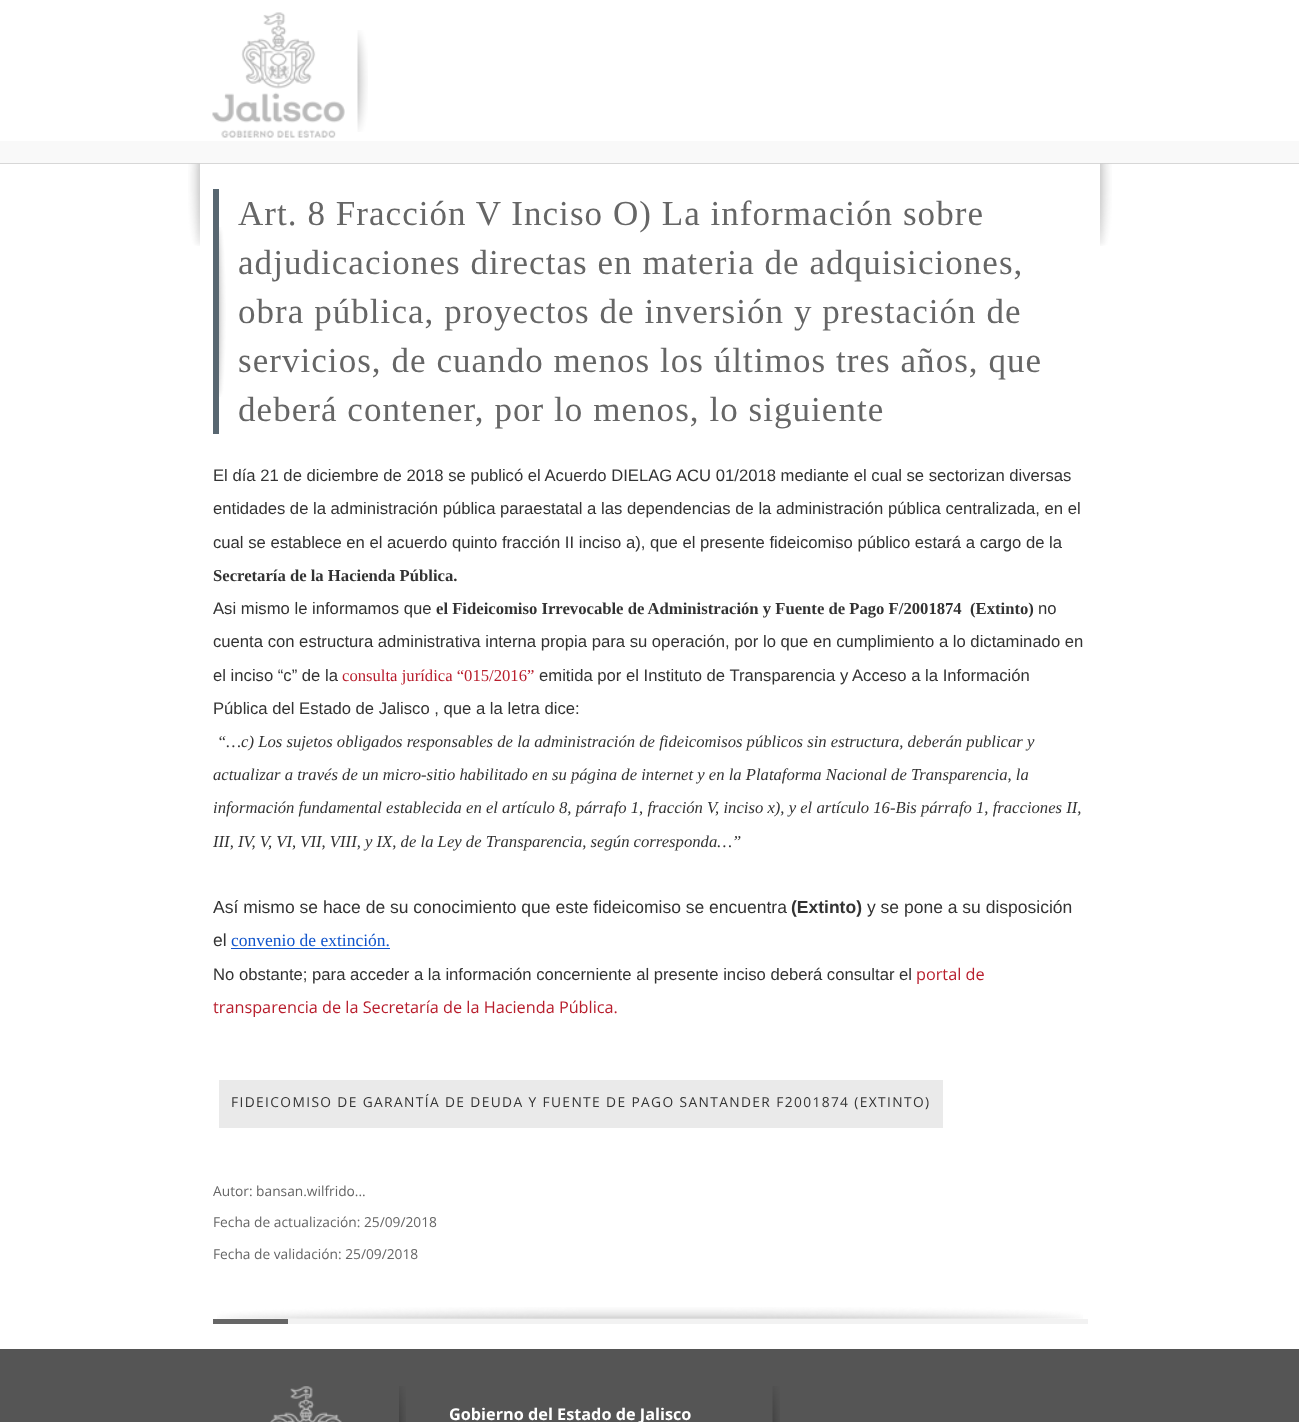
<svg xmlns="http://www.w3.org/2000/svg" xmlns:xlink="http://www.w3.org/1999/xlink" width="1299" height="1422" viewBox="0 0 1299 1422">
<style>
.cls-1{font:35px Liberation Serif;letter-spacing:1.05px;fill:#666666}
.cls-2{font:16.67px Liberation Sans;fill:#333333}
.cls-3{font:bold 16.67px Liberation Serif;fill:#333333}
.cls-4{font:16.67px Liberation Serif;fill:#b81d2c}
.cls-5{font:italic 16.67px Liberation Serif;fill:#333333}
.cls-6{font:17.5px Liberation Sans;fill:#333333}
.cls-7{font:bold 17.5px Liberation Sans;fill:#333333}
.cls-8{font:17.5px Liberation Serif;fill:#1155cc}
.cls-9{font:16.25px Open Sans;fill:#b81d2c}
.cls-10{font:13.75px Open Sans;letter-spacing:1.38px;fill:#333333}
.cls-11{font:13.75px Open Sans;fill:#666666}
.cls-12{font:bold 16.25px Open Sans;fill:#ffffff}
</style>
<rect width="100%" height="100%" fill="#ffffff"/>
<image xlink:href="image0.png" x="357" y="30" width="11" height="102"/>
<image xlink:href="image1.png" x="212" y="12" width="133" height="126"/>
<rect fill="#f9f9f9" x="0" y="141" width="1299" height="22"/>
<rect fill="#d7d7d7" x="0" y="163" width="1299" height="1"/>
<image xlink:href="image2.png" x="188" y="163" width="924" height="83"/>
<image xlink:href="image3.png" x="219" y="227" width="7" height="170"/>
<rect fill="#586771" x="213" y="189" width="6" height="245"/>
<rect fill="#1155cc" x="231" y="948" width="159" height="1"/>
<rect fill="#eaeaea" x="219" y="1080" width="724" height="48"/>
<image xlink:href="image4.png" x="217" y="1307" width="866" height="12"/>
<rect fill="#f2f2f2" x="288" y="1319" width="800" height="5"/>
<rect fill="#666666" x="213" y="1319" width="75" height="5"/>
<rect fill="#555555" x="0" y="1349" width="1299" height="73"/>
<image xlink:href="image5.png" x="270" y="1386" width="72" height="36"/>
<image xlink:href="image6.png" x="399" y="1386" width="7" height="36"/>
<image xlink:href="image7.png" x="772" y="1386" width="8" height="36"/>
<text class="cls-1"><tspan x="238" y="225">Art. 8 Fracción V Inciso O) La información sobre</tspan><tspan x="238" y="274">adjudicaciones directas en materia de adquisiciones,</tspan><tspan x="238" y="323">obra pública, proyectos de inversión y prestación de</tspan><tspan x="238" y="372">servicios, de cuando menos los últimos tres años, que</tspan><tspan x="238" y="421">deberá contener, por lo menos, lo siguiente</tspan></text>
<text class="cls-2"><tspan x="213" y="481">El día 21 de diciembre de 2018 se publicó el Acuerdo DIELAG ACU 01/2018 mediante el cual se sectorizan diversas</tspan><tspan x="213" y="514">entidades de la administración pública paraestatal a las dependencias de la administración pública centralizada, en el</tspan></text>
<text class="cls-2" x="213" y="548">cual se establece en el acuerdo quinto fracción II inciso a), que el presente fideicomiso público estará a cargo de la</text>
<text class="cls-3" x="213" y="581">Secretaría de la Hacienda Pública.</text>
<text class="cls-2" x="213" y="614">Asi mismo le informamos que</text>
<text class="cls-3" xml:space="preserve" x="436" y="614">el Fideicomiso Irrevocable de Administración y Fuente de Pago F/2001874  (Extinto)</text>
<text class="cls-2" x="1038" y="614">no</text>
<text class="cls-2" x="213" y="647">cuenta con estructura administrativa interna propia para su operación, por lo que en cumplimiento a lo dictaminado en</text>
<text class="cls-2" x="213" y="681">el inciso “c” de la</text>
<text class="cls-4" x="342" y="681">consulta jurídica “015/2016”</text>
<text class="cls-2" x="539" y="681">emitida por el Instituto de Transparencia y Acceso a la Información</text>
<text class="cls-2" x="213" y="714">Pública del Estado de Jalisco , que a la letra dice:</text>
<text class="cls-5" x="217" y="747">“…c) Los sujetos obligados responsables de la administración de fideicomisos públicos sin estructura, deberán publicar y</text>
<text class="cls-5"><tspan x="213" y="780">actualizar a través de un micro-sitio habilitado en su página de internet y en la Plataforma Nacional de Transparencia, la</tspan><tspan x="213" y="813">información fundamental establecida en el artículo 8, párrafo 1, fracción V, inciso x), y el artículo 16-Bis párrafo 1, fracciones II,</tspan></text>
<text class="cls-5" x="213" y="847">III, IV, V, VI, VII, VIII, y IX, de la Ley de Transparencia, según corresponda…”</text>
<text class="cls-6" x="213" y="913">Así mismo se hace de su conocimiento que este fideicomiso se encuentra</text>
<text class="cls-7" x="791" y="913">(Extinto)</text>
<text class="cls-6" x="867" y="913">y se pone a su disposición</text>
<text class="cls-6" x="213" y="946">el</text>
<text class="cls-8" x="231" y="946">convenio de extinción.</text>
<text class="cls-2" x="213" y="980">No obstante; para acceder a la información concerniente al presente inciso deberá consultar el</text>
<text class="cls-9" x="916" y="980">portal de</text>
<text class="cls-9" x="213" y="1013">transparencia de la Secretaría de la Hacienda Pública.</text>
<text class="cls-10" x="231" y="1107">FIDEICOMISO DE GARANTÍA DE DEUDA Y FUENTE DE PAGO SANTANDER F2001874 (EXTINTO)</text>
<text class="cls-11" x="213" y="1196">Autor: bansan.wilfrido...</text>
<text class="cls-11" x="213" y="1227">Fecha de actualización: 25/09/2018</text>
<text class="cls-11" x="213" y="1259">Fecha de validación: 25/09/2018</text>
<text class="cls-12" x="449" y="1420">Gobierno del Estado de Jalisco</text>
</svg>
